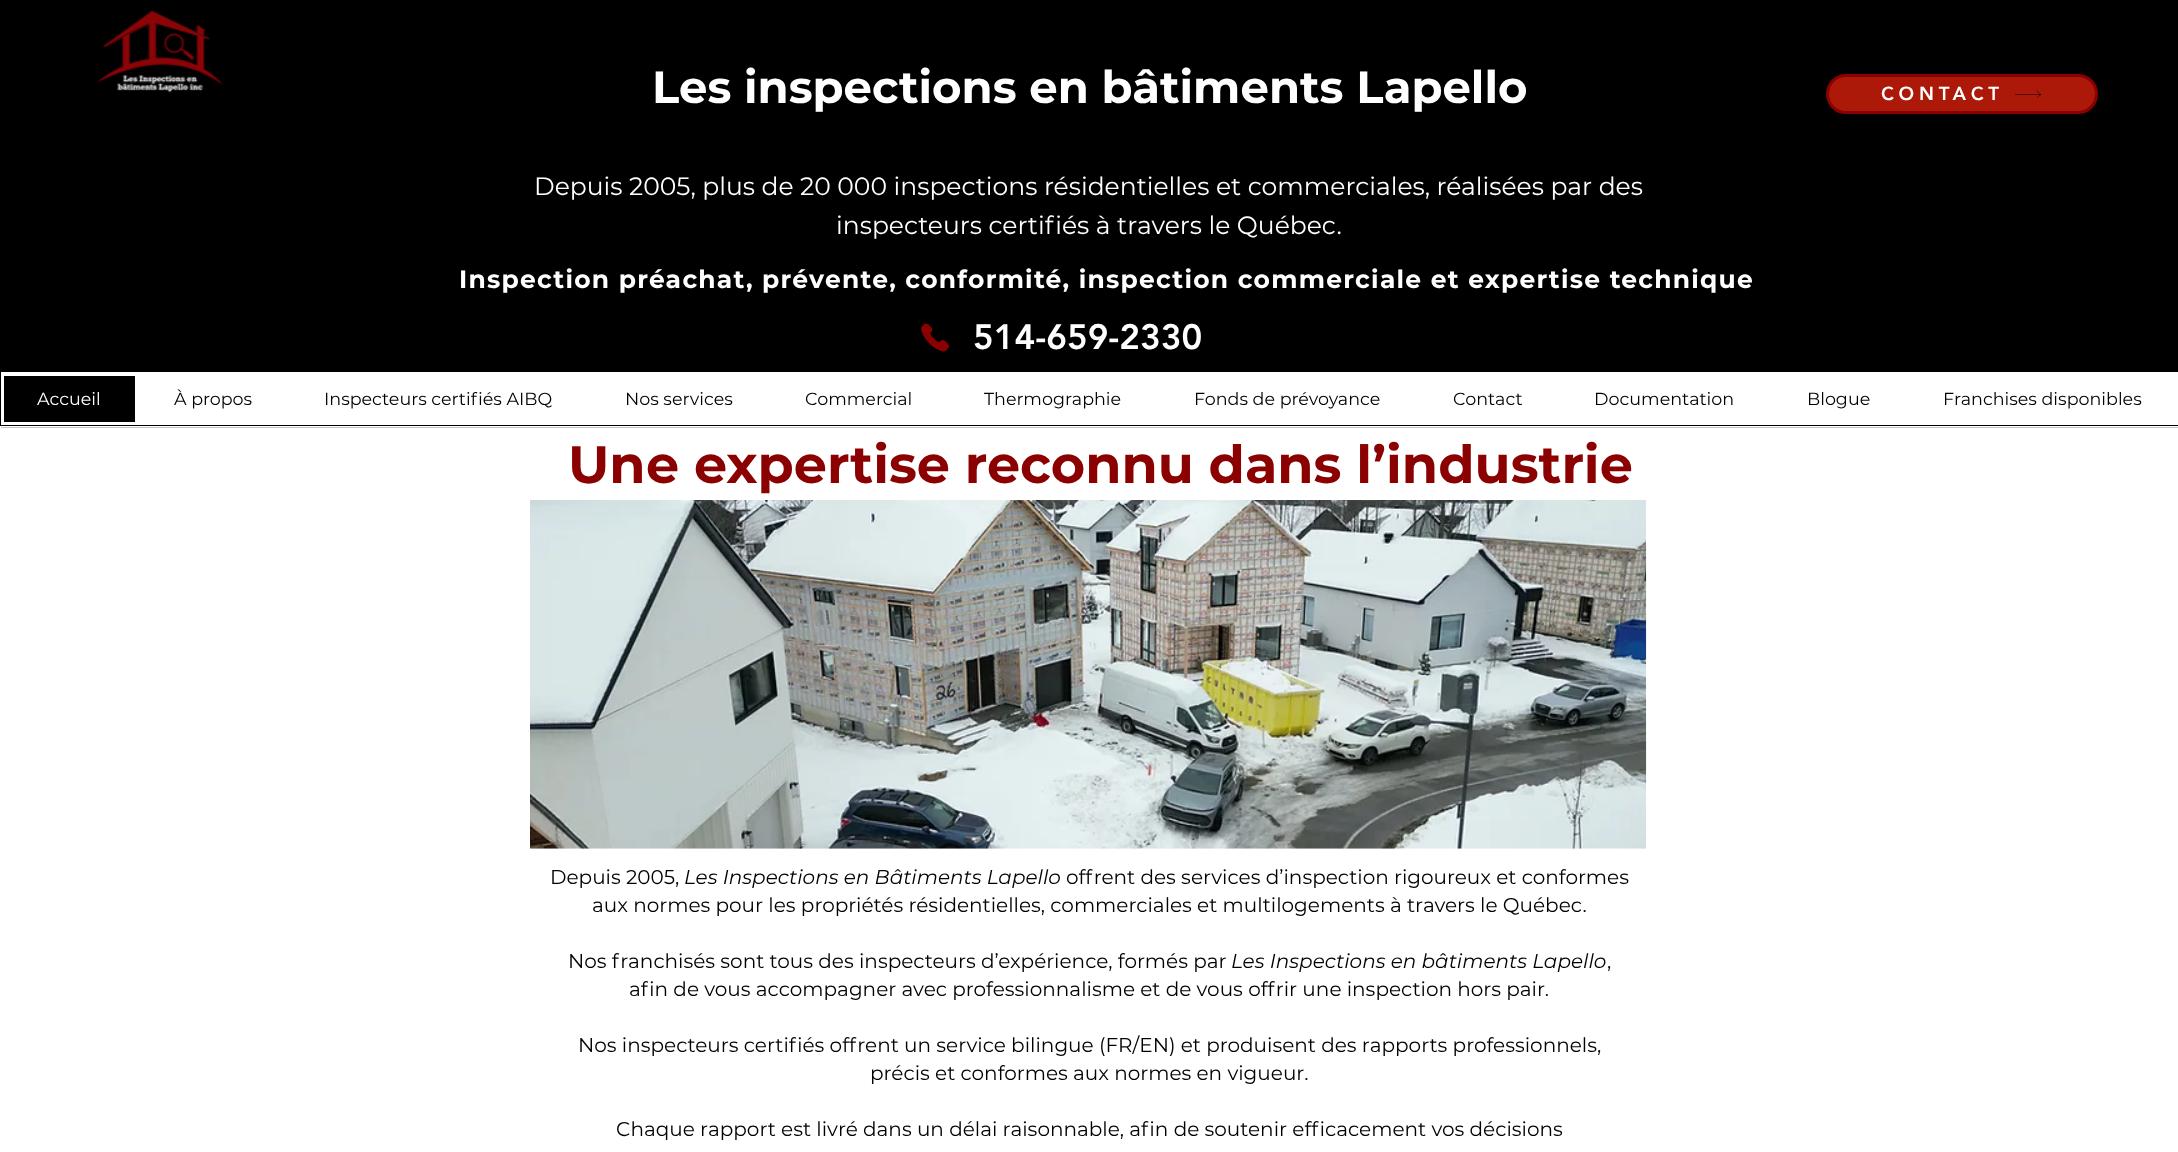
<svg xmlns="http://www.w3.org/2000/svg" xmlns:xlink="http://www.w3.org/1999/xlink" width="2178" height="1152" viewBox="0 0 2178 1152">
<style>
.cls-1{font:bold 45px Montserrat;fill:#ffffff}
.cls-2{font:25px Montserrat;fill:#ffffff}
.cls-3{font:bold 25px Montserrat;letter-spacing:1.25px;fill:#ffffff}
.cls-4{font:900 35px 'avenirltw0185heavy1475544';fill:#ffffff}
.cls-5{font:17.5px Montserrat;fill:#ffffff}
.cls-6{font:17.5px Montserrat;fill:#000000}
.cls-7{font:900 18.75px 'avenirltw0185heavy1475544';letter-spacing:4.75px;fill:#ffffff}
.cls-8{font:bold 52.5px Montserrat;fill:#8b0000}
.cls-9{font:20px Montserrat;fill:#000000}
.cls-10{font:italic 20px Montserrat;fill:#000000}
</style>
<rect width="100%" height="100%" fill="#000000"/>
<image xlink:href="image0.png" x="97" y="10" width="126" height="83"/>
<image xlink:href="image1.png" x="921" y="323" width="28" height="29"/>
<rect fill="#ffffff" x="1" y="372" width="2177" height="53"/>
<rect fill="#000000" x="4" y="376" width="131" height="46"/>
<rect fill="#ad1909" stroke="#8b0000" stroke-width="3" x="1827.5" y="75.5" width="269" height="37" rx="18.5"/>
<path fill="#000000" d="M2036.5 90V90.5L2040 94H2015V94.5H2040L2036.5 98.5L2041 94.5Z"/>
<rect fill="#c7c7c7" x="1" y="427" width="2177" height="1"/>
<rect fill="none" stroke="#ffffff" x="0.5" y="426.5" width="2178" height="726"/>
<rect fill="#ffffff" x="1" y="428" width="2177" height="724"/>
<image xlink:href="image2.png" x="530" y="500" width="1117" height="349"/>
<text class="cls-1" x="652" y="103">Les inspections en bâtiments Lapello</text>
<text class="cls-2" x="534" y="195">Depuis 2005, plus de 20 000 inspections résidentielles et commerciales, réalisées par des</text>
<text class="cls-2" x="836" y="234">inspecteurs certifiés à travers le Québec.</text>
<text class="cls-3" x="459" y="288">Inspection préachat, prévente, conformité, inspection commerciale et expertise technique</text>
<text class="cls-4" x="973" y="349">514-659-2330</text>
<text class="cls-5" x="37" y="405">Accueil</text>
<text class="cls-6" x="174" y="405">À propos</text>
<text class="cls-6" x="324" y="405">Inspecteurs certifiés AIBQ</text>
<text class="cls-6" x="625" y="405">Nos services</text>
<text class="cls-6" x="805" y="405">Commercial</text>
<text class="cls-6" x="984" y="405">Thermographie</text>
<text class="cls-6" x="1194" y="405">Fonds de prévoyance</text>
<text class="cls-6" x="1453" y="405">Contact</text>
<text class="cls-6" x="1594" y="405">Documentation</text>
<text class="cls-6" x="1807" y="405">Blogue</text>
<text class="cls-6" x="1943" y="405">Franchises disponibles</text>
<text class="cls-7" x="1881" y="100">CONTACT</text>
<text class="cls-8" x="568" y="483">Une expertise reconnu dans l’industrie</text>
<text class="cls-9" x="550" y="884">Depuis 2005,</text>
<text class="cls-10" x="684" y="884">Les Inspections en Bâtiments Lapello</text>
<text class="cls-9" x="1066" y="884">offrent des services d’inspection rigoureux et conformes</text>
<text class="cls-9" x="592" y="912">aux normes pour les propriétés résidentielles, commerciales et multilogements à travers le Québec.</text>
<text class="cls-9" x="568" y="968">Nos franchisés sont tous des inspecteurs d’expérience, formés par</text>
<text class="cls-10" x="1231" y="968">Les Inspections en bâtiments Lapello</text>
<text class="cls-9" x="1607" y="968">,</text>
<text class="cls-9" x="629" y="996">afin de vous accompagner avec professionnalisme et de vous offrir une inspection hors pair.</text>
<text class="cls-9" x="578" y="1052">Nos inspecteurs certifiés offrent un service bilingue (FR/EN) et produisent des rapports professionnels,</text>
<text class="cls-9" x="870" y="1080">précis et conformes aux normes en vigueur.</text>
<text class="cls-9" x="616" y="1136">Chaque rapport est livré dans un délai raisonnable, afin de soutenir efficacement vos décisions</text>
</svg>
